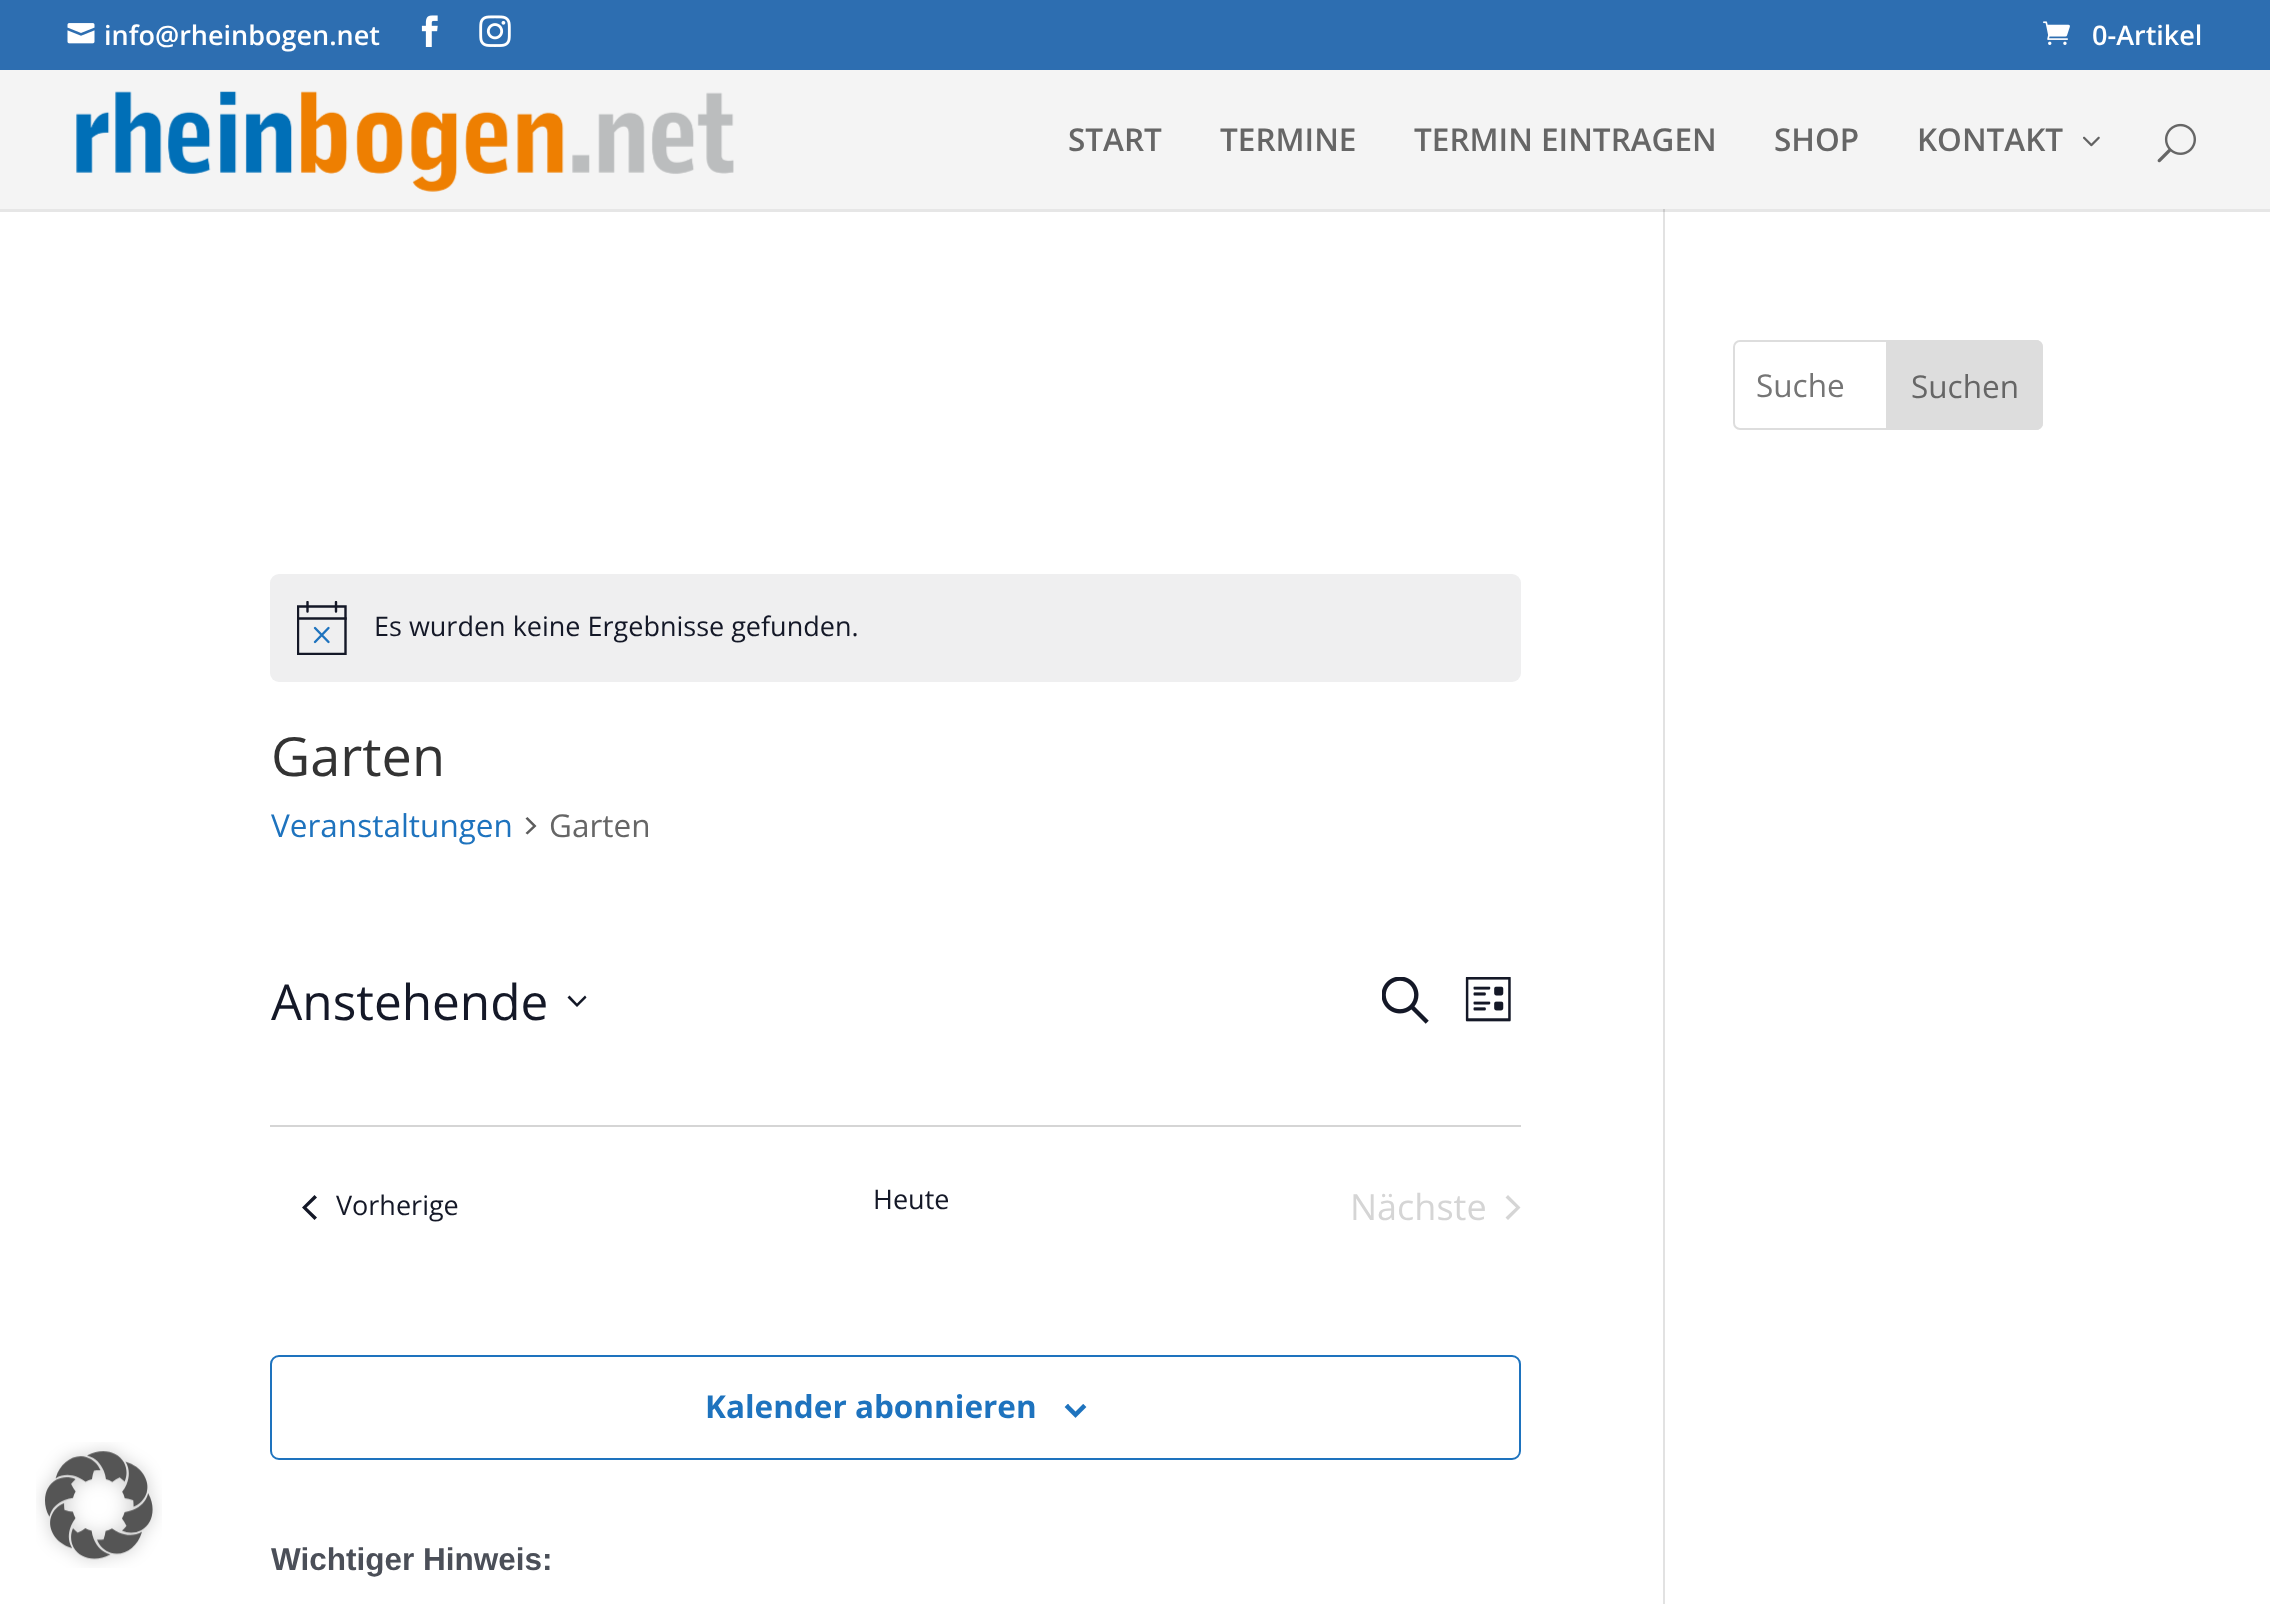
<svg xmlns="http://www.w3.org/2000/svg" xmlns:xlink="http://www.w3.org/1999/xlink" width="2270" height="1604" viewBox="0 0 2270 1604">
<style>
.cls-1{font:600 27px Open Sans;fill:#ffffff}
.cls-2{font:600 31.5px Open Sans;fill:#666666}
.cls-3{font:31.5px Open Sans;fill:#757575}
.cls-4{font:31.5px Open Sans;fill:#666666}
.cls-5{font:27px Open Sans;fill:#141827}
.cls-6{font:54px Open Sans;fill:#333333}
.cls-7{font:31.5px Open Sans;fill:#1e73be}
.cls-8{font:49.5px Open Sans;fill:#141827}
.cls-9{font:36px Open Sans;fill:#d5d5d5}
.cls-10{font:bold 31.5px Open Sans;fill:#1e73be}
.cls-11{font:bold 31.5px Liberation Sans;fill:#4b4f58}
</style>
<defs>
<clipPath id="clip1"><rect x="297" y="601" width="50" height="54"/></clipPath>
</defs>
<rect width="100%" height="100%" fill="#ffffff"/>
<image xlink:href="image0.png" x="36" y="1442" width="126" height="126"/>
<rect fill="#2d6eb1" x="0" y="0" width="2270" height="70"/>
<image xlink:href="image1.png" x="67" y="23" width="28" height="21"/>
<image xlink:href="image2.png" x="421" y="15" width="17" height="32"/>
<image xlink:href="image3.png" x="479" y="15" width="32" height="32"/>
<image xlink:href="image4.png" x="2043" y="21" width="27" height="24"/>
<rect fill="#f4f4f4" x="0" y="70" width="2270" height="139"/>
<image xlink:href="image5.png" x="76" y="91" width="658" height="101"/>
<image xlink:href="image6.png" x="2083" y="136" width="17" height="11"/>
<image xlink:href="image7.png" x="2157" y="123" width="39" height="40"/>
<rect fill="#e6e6e6" x="0" y="209" width="2270" height="3"/>
<rect fill="#e2e2e2" x="1663" y="209" width="2" height="1395"/>
<rect fill="#cbcbcb" x="1663" y="209" width="2" height="3"/>
<rect fill="none" stroke="#dddddd" stroke-width="2" x="1734" y="341" width="308" height="88" rx="6"/>
<path fill="#dddddd" stroke="#dddddd" stroke-width="2" d="M1887 341H2036C2039.5 341 2042 343.5 2042 347V423C2042 426.5 2039.5 429 2036 429H1887Z"/>
<rect fill="#efeff0" x="270" y="574" width="1251" height="108" rx="9"/>
<g clip-path="url(#clip1)">
<path fill="none" stroke="#141827" stroke-width="2.4" d="M298 606.5H345.5V654H298Z"/>
</g>
<path fill="none" stroke="#1e73be" stroke-width="2.4" stroke-linecap="round" d="M315 628L328.5 642M328.5 628L315 642"/>
<g clip-path="url(#clip1)">
<path fill="none" stroke="#141827" stroke-width="2.4" stroke-linecap="round" d="M307.5 602V611.5M336 602V611.5"/>
<path fill="none" stroke="#141827" stroke-width="2.4" stroke-linecap="square" d="M298 618.5H345.5"/>
</g>
<path fill="#5d5d5d" d="M525.5 818.5L527.5 817L536.5 826L527.5 834.5L525.5 833L533 826Z"/>
<path fill="#141827" fill-rule="evenodd" d="M569.5 995.5L577 1003.5L585 995.5L586.5 997.5L577 1007L567.5 997.5Z"/>
<image xlink:href="image8.png" x="1382" y="977" width="47" height="47"/>
<image xlink:href="image9.png" x="1465" y="977" width="46" height="45"/>
<rect fill="#d5d5d5" x="270" y="1125" width="1251" height="2"/>
<path fill="#141827" d="M317 1217.5L314.5 1220L302 1207.5L314.5 1195L317 1197.5L306.5 1207.5Z"/>
<path fill="#d5d5d5" d="M1505.5 1197.5L1508 1195L1520.5 1207.5L1508 1220L1505.5 1217.5L1516 1207.5Z"/>
<rect fill="none" stroke="#1e73be" stroke-width="2" x="271" y="1356" width="1249" height="103" rx="8"/>
<image xlink:href="image10.png" x="1064" y="1404" width="23" height="14"/>
<text class="cls-1" x="104" y="45">info@rheinbogen.net</text>
<text class="cls-1" x="2092" y="45">0-Artikel</text>
<text class="cls-2" x="1068" y="151">START</text>
<text class="cls-2" x="1220" y="151">TERMINE</text>
<text class="cls-2" x="1414" y="151">TERMIN EINTRAGEN</text>
<text class="cls-2" x="1774" y="151">SHOP</text>
<text class="cls-2" x="1917" y="151">KONTAKT</text>
<text class="cls-3" x="1756" y="397">Suche</text>
<text class="cls-4" x="1911" y="398">Suchen</text>
<text class="cls-5" x="374" y="636">Es wurden keine Ergebnisse gefunden.</text>
<text class="cls-6" x="271" y="776">Garten</text>
<text class="cls-7" x="271" y="837">Veranstaltungen</text>
<text class="cls-4" x="549" y="837">Garten</text>
<text class="cls-8" x="271" y="1020">Anstehende</text>
<text class="cls-5" x="336" y="1215">Vorherige</text>
<text class="cls-5" x="873" y="1209">Heute</text>
<text class="cls-9" x="1350" y="1220">Nächste</text>
<text class="cls-10" x="705" y="1418">Kalender abonnieren</text>
<text class="cls-11" x="271" y="1570">Wichtiger Hinweis:</text>
</svg>
